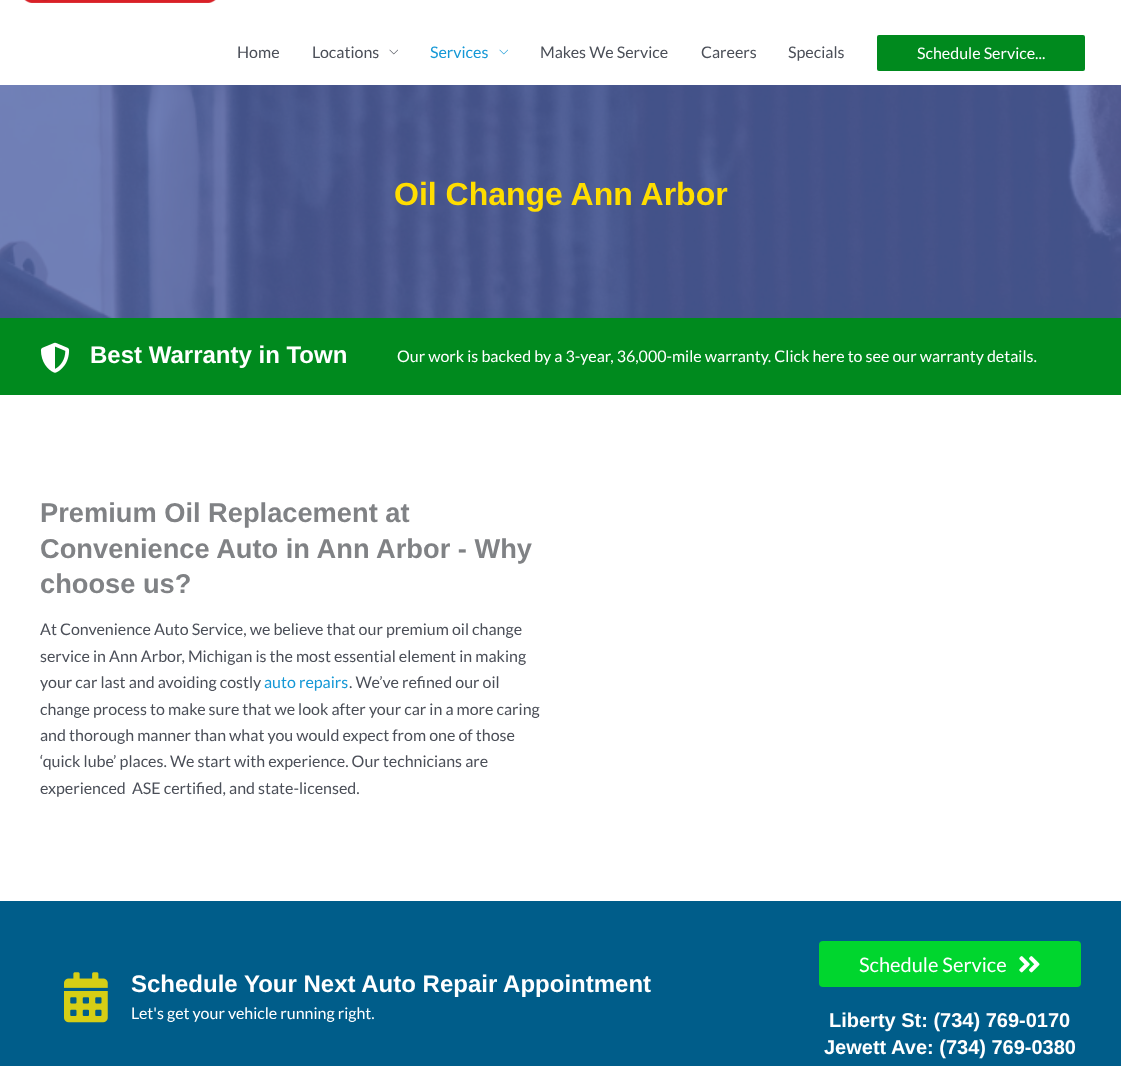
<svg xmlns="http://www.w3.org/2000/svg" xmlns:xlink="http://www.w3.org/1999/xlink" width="1121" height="1066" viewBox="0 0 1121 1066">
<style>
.cls-1{font:16px Lato;fill:#4b4f58}
.cls-2{font:16px Lato;fill:#1598d6}
.cls-3{font:16px Lato;fill:#ffffff}
.cls-4{font:bold 32px Liberation Sans;fill:#ffdd00}
.cls-5{font:bold 24px Liberation Sans;fill:#ffffff}
.cls-6{font:bold 27.25px Liberation Sans;fill:#808285}
.cls-7{font:20px Lato;fill:#ffffff}
.cls-8{font:bold 20px Liberation Sans;fill:#ffffff}
</style>
<rect width="100%" height="100%" fill="#ffffff"/>
<image xlink:href="image0.png" x="24" y="0" width="192" height="3"/>
<image xlink:href="image1.png" x="389" y="49" width="9" height="6"/>
<image xlink:href="image2.png" x="499" y="49" width="9" height="6"/>
<rect fill="#008a1e" x="877" y="35" width="208" height="36" rx="2"/>
<image xlink:href="image3.png" x="0" y="85" width="1121" height="233"/>
<rect fill="#008a1e" x="0" y="318" width="1121" height="77"/>
<image xlink:href="image4.png" x="40" y="342" width="30" height="31"/>
<rect fill="#005d8a" x="0" y="901" width="1121" height="165"/>
<image xlink:href="image5.png" x="64" y="972" width="44" height="51"/>
<rect fill="#00d62e" x="819" y="941" width="262" height="46" rx="4"/>
<image xlink:href="image6.png" x="1019" y="956" width="21" height="17"/>
<text class="cls-1" x="237" y="58">Home</text>
<text class="cls-1" x="312" y="58">Locations</text>
<text class="cls-2" x="430" y="58">Services</text>
<text class="cls-1" x="540" y="58">Makes We Service</text>
<text class="cls-1" x="701" y="58">Careers</text>
<text class="cls-1" x="788" y="58">Specials</text>
<text class="cls-3" x="917" y="59">Schedule Service...</text>
<text class="cls-4" x="394" y="205">Oil Change Ann Arbor</text>
<text class="cls-5" x="90" y="363">Best Warranty in Town</text>
<text class="cls-3" x="397" y="362">Our work is backed by a 3-year, 36,000-mile warranty. Click here to see our warranty details.</text>
<text class="cls-6"><tspan x="40" y="522">Premium Oil Replacement at</tspan><tspan x="40" y="558">Convenience Auto in Ann Arbor - Why</tspan><tspan x="40" y="593">choose us?</tspan></text>
<text class="cls-1"><tspan x="40" y="635">At Convenience Auto Service, we believe that our premium oil change</tspan><tspan x="40" y="662">service in Ann Arbor, Michigan is the most essential element in making</tspan><tspan x="40" y="688">your car last and avoiding costly</tspan></text>
<text class="cls-2" x="264" y="688">auto repairs</text>
<text class="cls-1" x="349" y="688">. We’ve refined our oil</text>
<text class="cls-1" xml:space="preserve"><tspan x="40" y="715">change process to make sure that we look after your car in a more caring</tspan><tspan x="40" y="741">and thorough manner than what you would expect from one of those</tspan><tspan x="40" y="767">‘quick lube’ places. We start with experience. Our technicians are</tspan><tspan x="40" y="794">experienced  ASE certified, and state-licensed.</tspan></text>
<text class="cls-5" x="131" y="992">Schedule Your Next Auto Repair Appointment</text>
<text class="cls-3" x="131" y="1019">Let's get your vehicle running right.</text>
<text class="cls-7" x="859" y="972">Schedule Service</text>
<text class="cls-8" x="829" y="1027">Liberty St: (734) 769-0170</text>
<text class="cls-8" x="824" y="1054">Jewett Ave: (734) 769-0380</text>
</svg>
